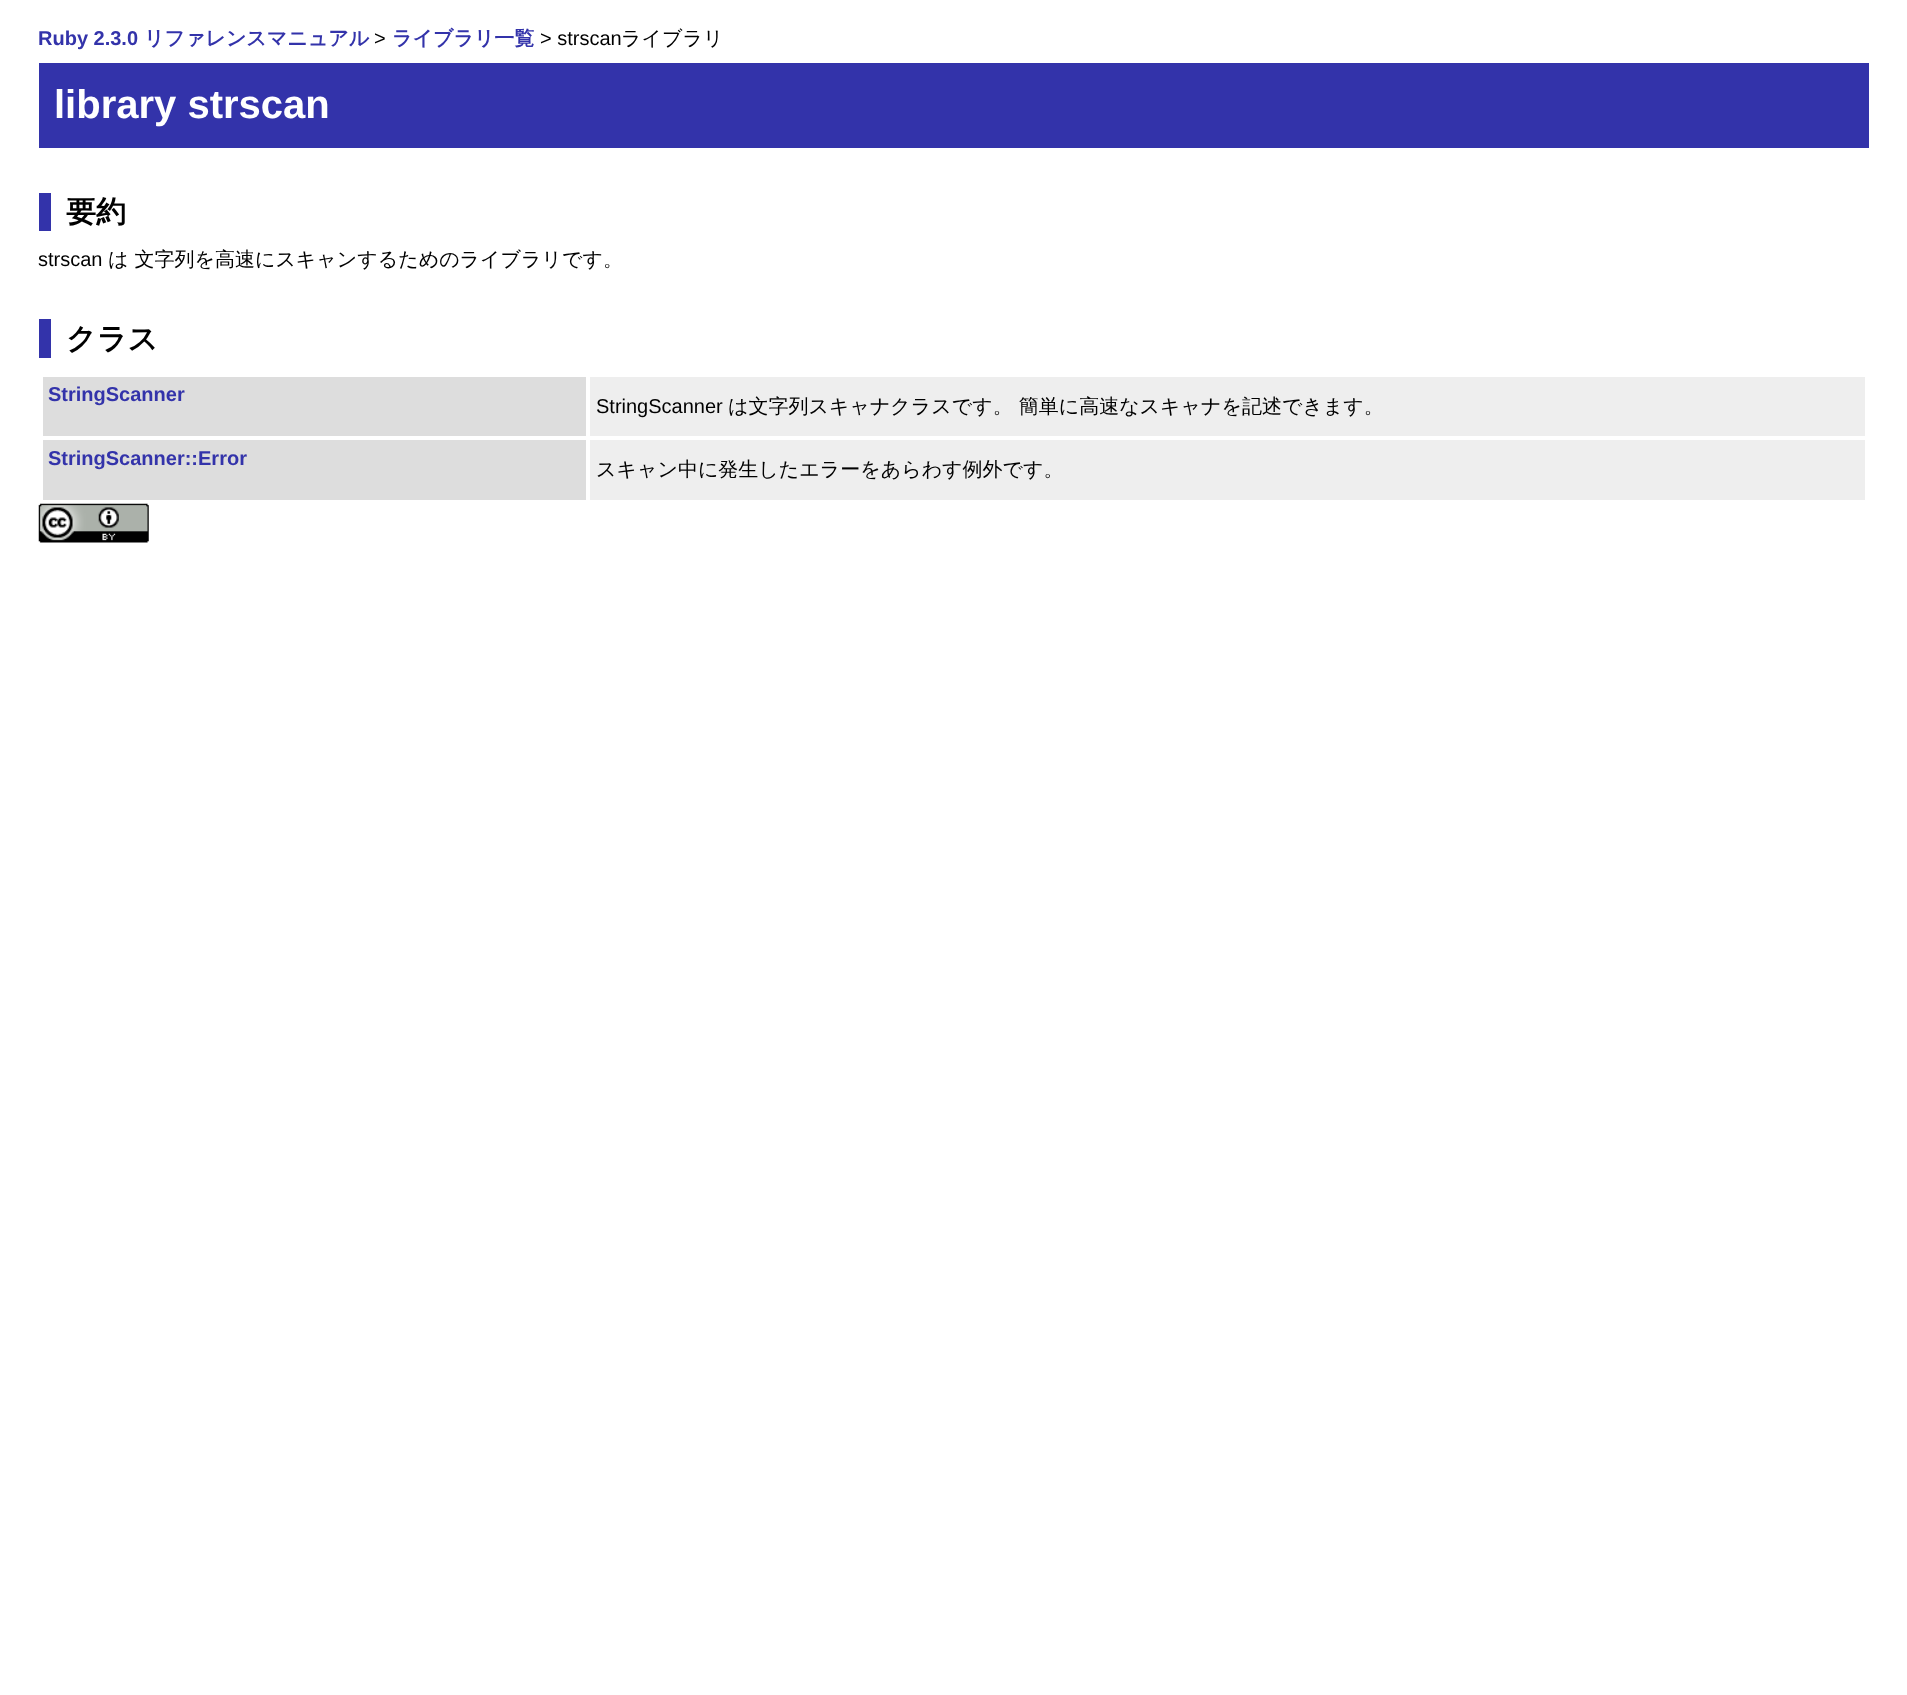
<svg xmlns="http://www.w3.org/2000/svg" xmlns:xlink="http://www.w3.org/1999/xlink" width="1907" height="1695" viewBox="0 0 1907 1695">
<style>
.cls-1{font:bold 20px Liberation Sans;fill:#3333aa}
.cls-2{font:bold 20px WenQuanYi Zen Hei;fill:#3333aa}
.cls-3{font:20px Liberation Sans;fill:#000000}
.cls-4{font:500 20px WenQuanYi Zen Hei;fill:#000000}
.cls-5{font:bold 40px Liberation Sans;fill:#ffffff}
.cls-6{font:bold 30px WenQuanYi Zen Hei;fill:#000000}
</style>
<rect width="100%" height="100%" fill="#ffffff"/>
<rect fill="#3333aa" x="39" y="63" width="1830" height="85"/>
<rect fill="#3333aa" x="39" y="193" width="12" height="38"/>
<rect fill="#3333aa" x="39" y="319" width="12" height="39"/>
<rect fill="#dddddd" x="43" y="377" width="543" height="59"/>
<rect fill="#eeeeee" x="590" y="377" width="1275" height="59"/>
<rect fill="#dddddd" x="43" y="440" width="543" height="60"/>
<rect fill="#eeeeee" x="590" y="440" width="1275" height="60"/>
<image xlink:href="image0.png" x="38" y="503" width="111" height="40"/>
<text class="cls-1" x="38" y="45">Ruby 2.3.0</text>
<text class="cls-2" x="144" y="45">リファレンスマニュアル</text>
<text class="cls-3" x="374" y="45">&gt;</text>
<text class="cls-2" x="392" y="45">ライブラリ一覧</text>
<text class="cls-3" x="540" y="45">&gt; strscan</text>
<text class="cls-4" x="621" y="45">ライブラリ</text>
<text class="cls-5" x="54" y="118">library strscan</text>
<text class="cls-6" x="66" y="222">要約</text>
<text class="cls-3" x="38" y="266">strscan</text>
<text class="cls-4" x="108" y="266">は 文字列を高速にスキャンするためのライブラリです。</text>
<text class="cls-6" x="66" y="349">クラス</text>
<text class="cls-1" x="48" y="401">StringScanner</text>
<text class="cls-3" x="596" y="413">StringScanner</text>
<text class="cls-4" x="728" y="413">は文字列スキャナクラスです。 簡単に高速なスキャナを記述できます。</text>
<text class="cls-1" x="48" y="465">StringScanner::Error</text>
<text class="cls-4" x="596" y="476">スキャン中に発生したエラーをあらわす例外です。</text>
</svg>
